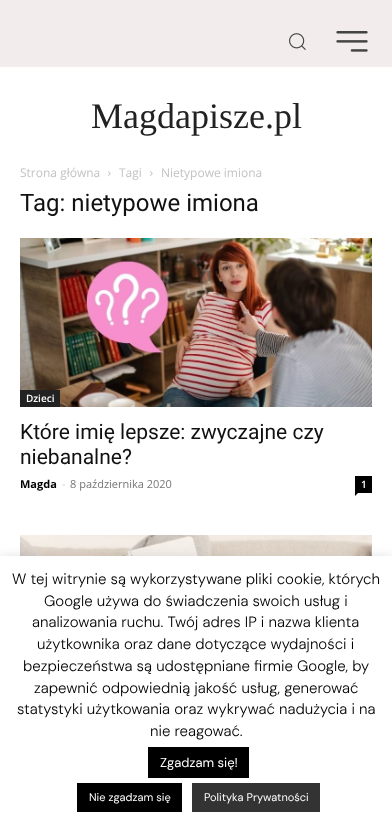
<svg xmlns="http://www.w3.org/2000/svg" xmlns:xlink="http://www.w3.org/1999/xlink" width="392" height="824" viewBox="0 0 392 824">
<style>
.cls-1{font:36px Liberation Serif;fill:#222222}
.cls-2{font:12px Open Sans;fill:#c3c3c3}
.cls-3{font:24px Roboto;fill:#111111}
.cls-4{font:600 10px Open Sans;fill:#ffffff}
.cls-5{font:21px Roboto;fill:#111111}
.cls-6{font:bold 11px Open Sans;fill:#000000}
.cls-7{font:11px Open Sans;fill:#cccccc}
.cls-8{font:11px Open Sans;fill:#767676}
.cls-9{font:300 15px DM Sans;fill:#000000}
.cls-10{font:13px DM Sans;fill:#ffffff}
.cls-11{font:11px DM Sans;fill:#ffffff}
</style>
<rect width="100%" height="100%" fill="#ffffff"/>
<rect fill="#f3ecec" x="0" y="0" width="392" height="67"/>
<image xlink:href="image0.png" x="289" y="33" width="17" height="17"/>
<image xlink:href="image1.png" x="336" y="31" width="32" height="21"/>
<image xlink:href="image2.png" x="108" y="171" width="3" height="5"/>
<image xlink:href="image2.png" x="150" y="171" width="3" height="5"/>
<image xlink:href="image3.png" x="20" y="238" width="352" height="169"/>
<rect fill="#222222" x="20" y="390" width="40" height="17"/>
<rect fill="#000000" x="355" y="476" width="17" height="17"/>
<path fill="#000000" d="M355 493H358L355 496Z"/>
<image xlink:href="image4.png" x="20" y="535" width="352" height="21"/>
<rect fill="#acabab" fill-opacity="0.3" filter="blur(5px)" x="0" y="555" width="392" height="268"/>
<rect fill="#ffffff" x="0" y="556" width="392" height="268"/>
<rect fill="#000000" x="148" y="747" width="101" height="31"/>
<rect fill="#000000" x="77" y="783" width="105" height="29"/>
<rect fill="#333333" x="192" y="783" width="128" height="29"/>
<text class="cls-1" x="91" y="128">Magdapisze.pl</text>
<text class="cls-2" x="20" y="177">Strona główna</text>
<text class="cls-2" x="119" y="177">Tagi</text>
<text class="cls-2" x="161" y="177">Nietypowe imiona</text>
<text class="cls-3" x="20" y="211">Tag: nietypowe imiona</text>
<text class="cls-4" x="26" y="402">Dzieci</text>
<text class="cls-5"><tspan x="20" y="439">Które imię lepsze: zwyczajne czy</tspan><tspan x="20" y="464">niebanalne?</tspan></text>
<text class="cls-6" x="20" y="488">Magda</text>
<text class="cls-7" x="62" y="488">-</text>
<text class="cls-8" x="70" y="488">8 października 2020</text>
<text class="cls-4" x="361" y="488">1</text>
<text class="cls-9" x="12" y="584">W tej witrynie są wykorzystywane pliki cookie, których</text>
<text class="cls-9" x="44" y="606">Google używa do świadczenia swoich usług i</text>
<text class="cls-9" x="32" y="627">analizowania ruchu. Twój adres IP i nazwa klienta</text>
<text class="cls-9" x="37" y="649">użytkownika oraz dane dotyczące wydajności i</text>
<text class="cls-9" x="23" y="671">bezpieczeństwa są udostępniane firmie Google, by</text>
<text class="cls-9" x="34" y="693">zapewnić odpowiednią jakość usług, generować</text>
<text class="cls-9" x="17" y="714">statystyki użytkowania oraz wykrywać nadużycia i na</text>
<text class="cls-9" x="150" y="736">nie reagować.</text>
<text class="cls-10" x="160" y="767">Zgadzam się!</text>
<text class="cls-11" x="89" y="801">Nie zgadzam się</text>
<text class="cls-11" x="204" y="801">Polityka Prywatności</text>
</svg>
